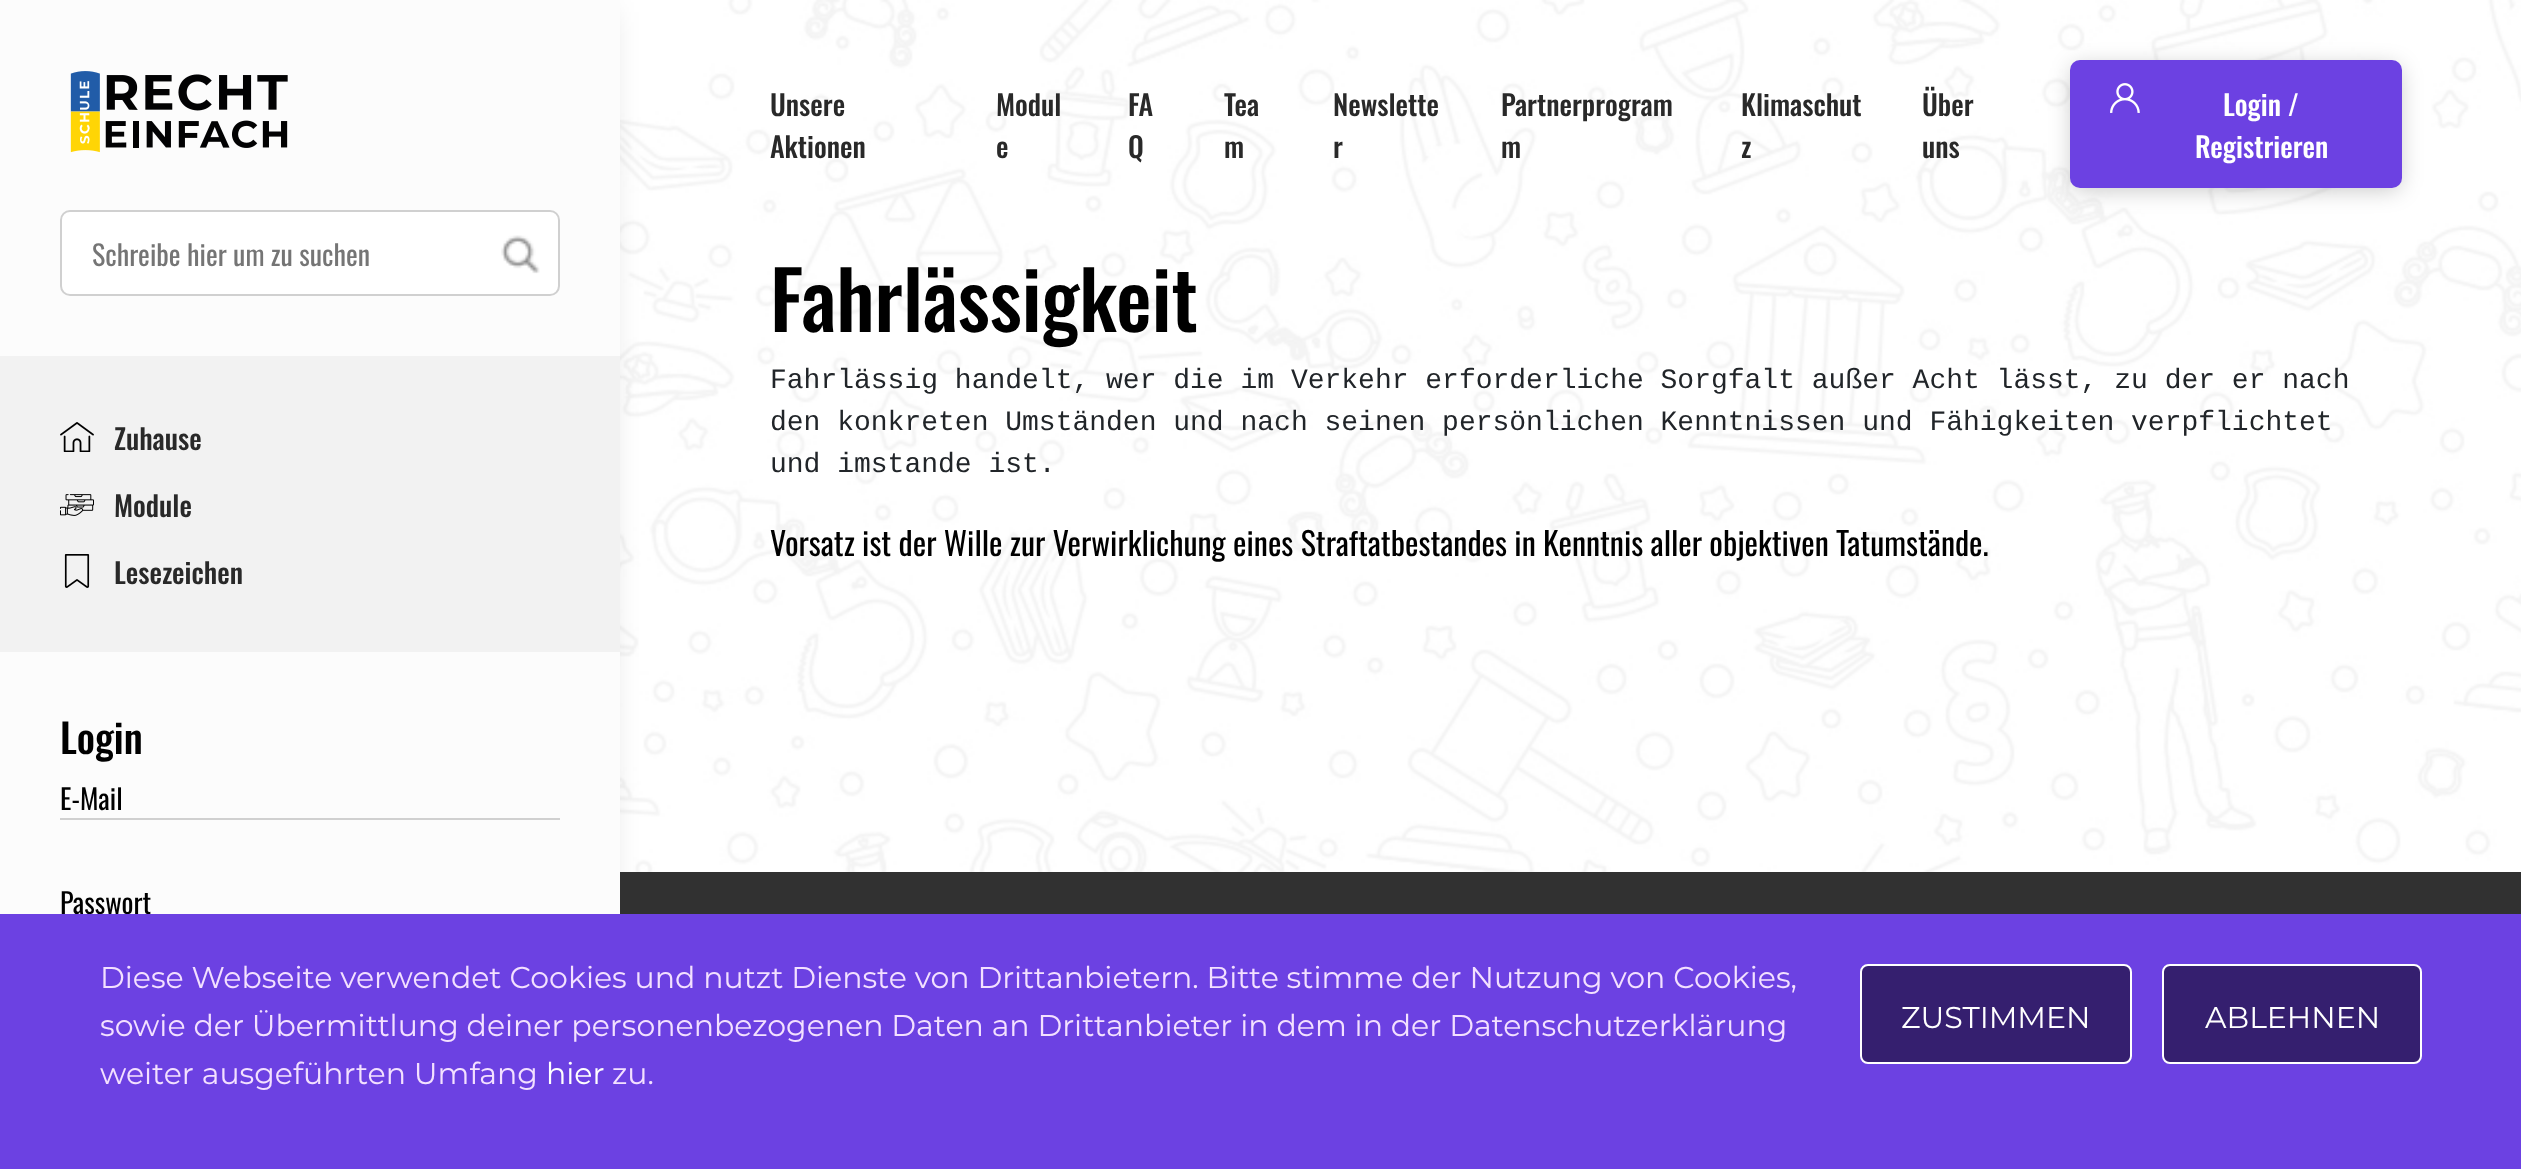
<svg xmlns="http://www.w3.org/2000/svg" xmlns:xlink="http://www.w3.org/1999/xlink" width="2521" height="1169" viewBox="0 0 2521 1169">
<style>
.cls-1{font:28px Oswald;fill:#757575}
.cls-2{font:500 28px Oswald;fill:#292929}
.cls-3{font:500 40px Oswald;fill:#000000}
.cls-4{font:28px Oswald;fill:#000000}
.cls-5{font:500 28px Oswald;fill:#ffffff}
.cls-6{font:500 80px Oswald;fill:#000000}
.cls-7{font:28px Liberation Mono;fill:#212529}
.cls-8{font:32px Oswald;fill:#000000}
.cls-9{font:30px Montserrat;fill:#f3e0ff}
.cls-10{font:30px Montserrat;fill:#ffffff}
</style>
<rect width="100%" height="100%" fill="#ffffff"/>
<image xlink:href="image0.png" x="620" y="0" width="1901" height="872"/>
<rect fill="#000000" fill-opacity="0.18" filter="blur(15px)" x="12" y="12" width="596" height="1146"/>
<rect fill="#fcfcfc" x="0" y="0" width="620" height="914"/>
<image xlink:href="image1.png" x="70" y="71" width="218" height="82"/>
<rect fill="#ffffff" stroke="#d0d0d0" stroke-width="2" x="61" y="211" width="498" height="84" rx="9"/>
<image xlink:href="image2.png" x="501" y="235" width="39" height="39"/>
<rect fill="#f2f2f2" x="0" y="356" width="620" height="296"/>
<image xlink:href="image3.png" x="60" y="422" width="34" height="30"/>
<image xlink:href="image4.png" x="60" y="494" width="34" height="22"/>
<image xlink:href="image5.png" x="64" y="554" width="26" height="34"/>
<rect fill="#d0d0d0" x="60" y="818" width="500" height="2"/>
<rect fill="#000000" fill-opacity="0.22" filter="blur(11px)" x="2072" y="66" width="328" height="124" rx="8"/>
<rect fill="#6c41e2" x="2070" y="60" width="332" height="128" rx="10"/>
<image xlink:href="image6.png" x="2110" y="83" width="30" height="30"/>
<rect fill="#313131" x="620" y="872" width="1901" height="42"/>
<text class="cls-1" x="92" y="266">Schreibe hier um zu suchen</text>
<text class="cls-2" x="114" y="450">Zuhause</text>
<text class="cls-2" x="114" y="517">Module</text>
<text class="cls-2" x="114" y="584">Lesezeichen</text>
<text class="cls-3" x="60" y="754">Login</text>
<text class="cls-4" x="60" y="810">E-Mail</text>
<text class="cls-4" x="60" y="914">Passwort</text>
<text class="cls-2"><tspan x="770" y="116">Unsere</tspan><tspan x="770" y="158">Aktionen</tspan></text>
<text class="cls-2"><tspan x="996" y="116">Modul</tspan><tspan x="996" y="158">e</tspan></text>
<text class="cls-2"><tspan x="1128" y="116">FA</tspan><tspan x="1128" y="158">Q</tspan></text>
<text class="cls-2"><tspan x="1224" y="116">Tea</tspan><tspan x="1224" y="158">m</tspan></text>
<text class="cls-2"><tspan x="1333" y="116">Newslette</tspan><tspan x="1333" y="158">r</tspan></text>
<text class="cls-2"><tspan x="1501" y="116">Partnerprogram</tspan><tspan x="1501" y="158">m</tspan></text>
<text class="cls-2"><tspan x="1741" y="116">Klimaschut</tspan><tspan x="1741" y="158">z</tspan></text>
<text class="cls-2"><tspan x="1922" y="116">Über</tspan><tspan x="1922" y="158">uns</tspan></text>
<text class="cls-5" x="2223" y="116">Login /</text>
<text class="cls-5" x="2195" y="158">Registrieren</text>
<text class="cls-6" x="770" y="332">Fahrlässigkeit</text>
<text class="cls-7"><tspan x="770" y="388">Fahrlässig handelt, wer die im Verkehr erforderliche Sorgfalt außer Acht lässt, zu der er nach</tspan><tspan x="770" y="430">den konkreten Umständen und nach seinen persönlichen Kenntnissen und Fähigkeiten verpflichtet</tspan><tspan x="770" y="472">und imstande ist.</tspan></text>
<text class="cls-8" x="770" y="556">Vorsatz ist der Wille zur Verwirklichung eines Straftatbestandes in Kenntnis aller objektiven Tatumstände.</text>
<rect fill="#6c41e2" x="0" y="914" width="2521" height="255"/>
<text class="cls-9"><tspan x="100" y="988">Diese Webseite verwendet Cookies und nutzt Dienste von Drittanbietern. Bitte stimme der Nutzung von Cookies,</tspan><tspan x="100" y="1036">sowie der Übermittlung deiner personenbezogenen Daten an Drittanbieter in dem in der Datenschutzerklärung</tspan><tspan x="100" y="1084">weiter ausgeführten Umfang</tspan></text>
<text class="cls-10" x="546" y="1084">hier</text>
<text class="cls-9" x="612" y="1084">zu.</text>
<rect fill="#351f6f" stroke="#ffffff" stroke-width="2" x="1861" y="965" width="270" height="98" rx="7"/>
<text class="cls-10" x="1901" y="1028">ZUSTIMMEN</text>
<rect fill="#351f6f" stroke="#ffffff" stroke-width="2" x="2163" y="965" width="258" height="98" rx="7"/>
<text class="cls-10" x="2205" y="1028">ABLEHNEN</text>
</svg>
